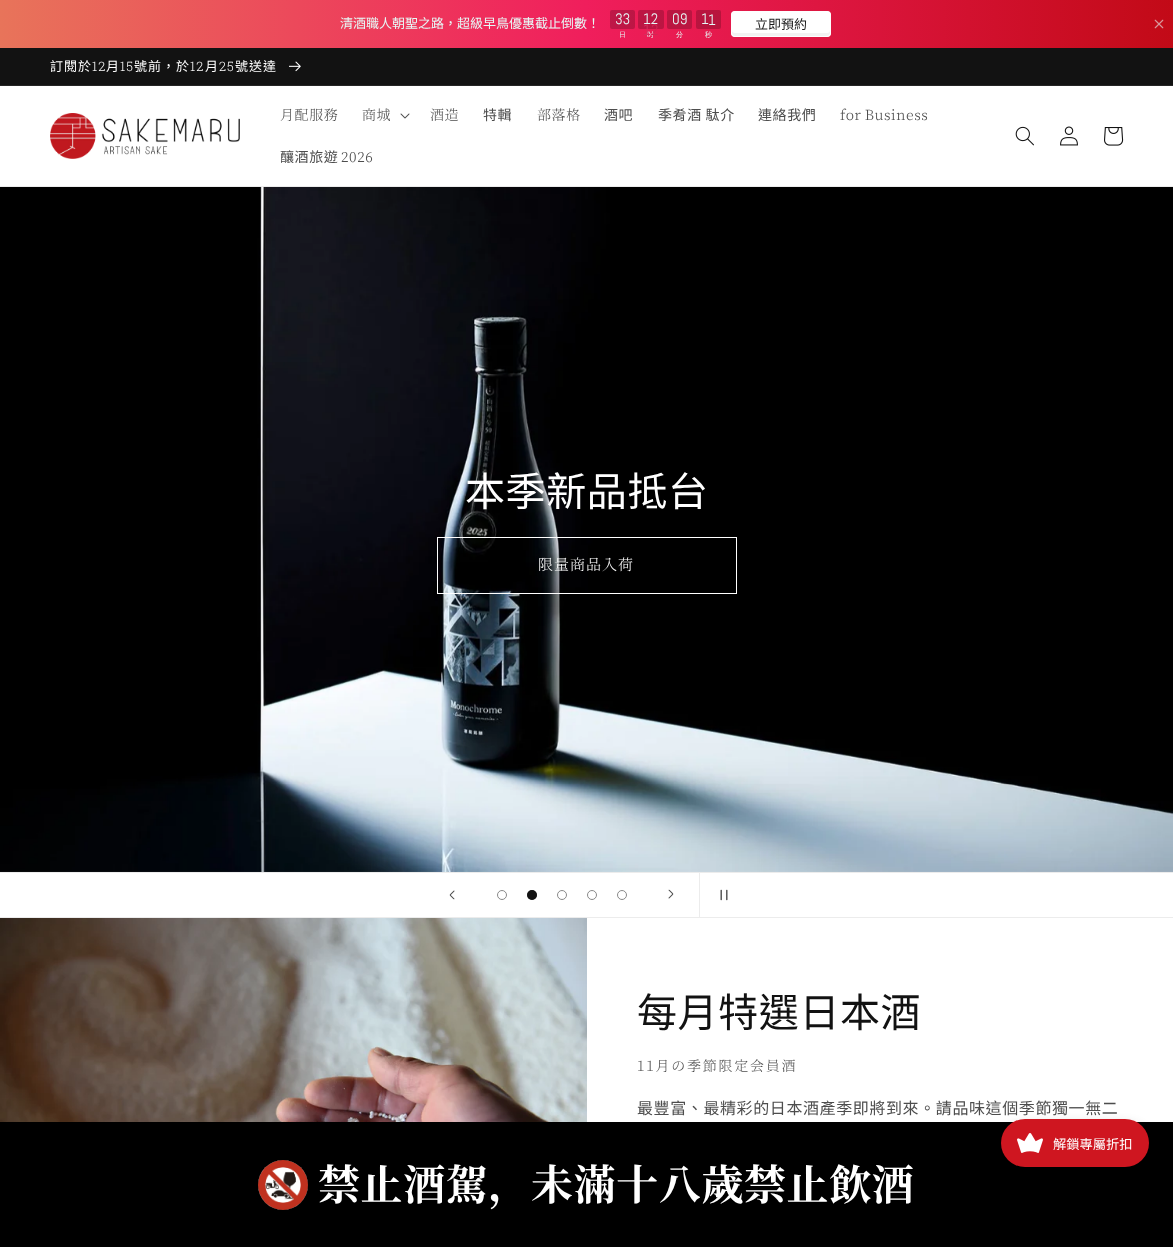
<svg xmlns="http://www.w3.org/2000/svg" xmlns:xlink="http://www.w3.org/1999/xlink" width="1173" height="1247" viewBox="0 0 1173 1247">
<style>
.cls-1{font:13px Noto Sans CJK TC;fill:#e6f9f7}
.cls-2{font:15px Abel;fill:#e6f9f7}
.cls-3{font:500 7px WenQuanYi Zen Hei;fill:#e6f9f7}
.cls-4{font:15px Abel;fill:#d22655}
.cls-5{font:15px Abel;fill:#d4305e}
.cls-6{font:13px Noto Sans CJK TC;fill:#1a1a1a}
.cls-7{font:13px Noto Sans CJK TC;letter-spacing:1px;fill:#ffffff}
.cls-8{font:300 13px Roboto Slab;letter-spacing:1px;fill:#ffffff}
.cls-9{font:300 14px Noto Serif JP;letter-spacing:0.6px;fill:#4d4d4d}
.cls-10{font:14px Noto Sans CJK TC;letter-spacing:0.6px;fill:#4d4d4d}
.cls-11{font:40px Noto Sans CJK TC;letter-spacing:0.6px;fill:#ffffff}
.cls-12{font:300 15px Noto Serif JP;letter-spacing:1px;fill:#ffffff}
.cls-13{font:40px Noto Sans CJK TC;letter-spacing:0.6px;fill:#121212}
.cls-14{font:300 14px Noto Serif JP;letter-spacing:1.75px;fill:#4d4d4d}
.cls-15{font:16px Noto Sans CJK TC;letter-spacing:0.6px;fill:#4d4d4d}
.cls-16{font:13.25px Noto Sans CJK TC;fill:#ffffff}
.cls-17{font:bold 42px Noto Serif JP;letter-spacing:0.6px;fill:#ffffff}
</style>
<defs>
<linearGradient id="g1" gradientUnits="userSpaceOnUse" x1="0" y1="24" x2="1173" y2="24"><stop offset="0" stop-color="#e8745a"/><stop offset="0.5" stop-color="#f01e5c"/><stop offset="1" stop-color="#c20a17"/></linearGradient>
</defs>
<rect width="100%" height="100%" fill="#ffffff"/>
<rect fill="url(#g1)" x="0" y="0" width="1173" height="48"/>
<rect fill="#000000" fill-opacity="0.2" x="610" y="10" width="25" height="19" rx="2"/>
<rect fill="#000000" fill-opacity="0.2" x="638" y="10" width="26" height="19" rx="2"/>
<rect fill="#ba1641" x="667" y="10" width="25" height="19" rx="2"/>
<rect fill="#000000" fill-opacity="0.2" x="696" y="10" width="25" height="19" rx="2"/>
<rect fill="#ffffff" x="731" y="11" width="100" height="26" rx="4"/>
<path fill="#f2f2f2" d="M732 30V33C732 35 733 36 735 36H827C829 36 830 35 830 33V30C830 32 829 33 827 33H735C733 33 732 32 732 30Z"/>
<rect fill="none" stroke="#ffffff" x="731.5" y="11.5" width="99" height="25" rx="3.5"/>
<image xlink:href="image0.png" x="1154" y="19" width="10" height="10"/>
<rect fill="#121212" x="0" y="48" width="1173" height="37"/>
<rect fill="#252525" x="0" y="85" width="1173" height="1"/>
<image xlink:href="image1.png" x="289" y="61" width="12" height="11"/>
<rect fill="#ececec" x="0" y="186" width="1173" height="1"/>
<image xlink:href="image2.png" x="50" y="113" width="190" height="46"/>
<image xlink:href="image3.png" x="400" y="113" width="10" height="6"/>
<image xlink:href="image4.png" x="1015" y="126" width="19" height="20"/>
<image xlink:href="image5.png" x="1060" y="126" width="18" height="20"/>
<image xlink:href="image6.png" x="1104" y="127" width="20" height="19"/>
<image xlink:href="image7.png" x="0" y="187" width="1173" height="685"/>
<rect fill="none" stroke="#ffffff" x="437.5" y="537.5" width="299" height="56"/>
<rect fill="#ececec" x="0" y="872" width="1173" height="1"/>
<rect fill="#ececec" x="0" y="917" width="1173" height="1"/>
<image xlink:href="image8.png" x="449" y="890" width="6" height="10"/>
<circle fill="none" stroke="#898989" cx="502" cy="895" r="4.5"/>
<circle fill="#121212" cx="532" cy="895" r="5"/>
<circle fill="none" stroke="#121212" stroke-opacity="0.5" cx="532" cy="895" r="4.5"/>
<circle fill="none" stroke="#898989" cx="562" cy="895" r="4.5"/>
<circle fill="none" stroke="#898989" cx="592" cy="895" r="4.5"/>
<circle fill="none" stroke="#898989" cx="622" cy="895" r="4.5"/>
<image xlink:href="image9.png" x="668" y="889" width="6" height="10"/>
<rect fill="#ececec" x="699" y="873" width="1" height="44"/>
<image xlink:href="image10.png" x="720" y="889" width="8" height="12"/>
<image xlink:href="image11.png" x="0" y="918" width="587" height="204"/>
<rect fill="#000000" x="0" y="1122" width="1173" height="125"/>
<rect fill="#000000" fill-opacity="0.25" filter="blur(6px)" x="1001" y="1125" width="148" height="48" rx="24"/>
<rect fill="#cf1620" x="1001" y="1119" width="148" height="48" rx="24"/>
<image xlink:href="image12.png" x="1017" y="1133" width="26" height="20"/>
<image xlink:href="image13.png" x="258" y="1160" width="50" height="50"/>
<text class="cls-1" x="340" y="28">清酒職人朝聖之路，超級早鳥優惠截止倒數！</text>
<text class="cls-2" x="615" y="24">33</text>
<text class="cls-3" x="619" y="37">日</text>
<text class="cls-2" x="643" y="24">12</text>
<text class="cls-3" x="647" y="37">时</text>
<text class="cls-4" x="651" y="35">2</text>
<text class="cls-5" x="643" y="35">1</text>
<text class="cls-2" x="672" y="24">09</text>
<text class="cls-3" x="676" y="37">分</text>
<text class="cls-2" x="701" y="24">1</text>
<text class="cls-2" x="708" y="25">1</text>
<text class="cls-3" x="705" y="37">秒</text>
<text class="cls-6" x="755" y="29">立即預約</text>
<text class="cls-7" x="50" y="71">訂閱於</text>
<text class="cls-8" x="92" y="71">12</text>
<text class="cls-7" x="106" y="71">月</text>
<text class="cls-8" x="120" y="71">15</text>
<text class="cls-7" x="134" y="71">號前，於</text>
<text class="cls-8" x="190" y="71">12</text>
<text class="cls-7" x="205" y="71">月</text>
<text class="cls-8" x="219" y="71">25</text>
<text class="cls-7" x="235" y="71">號送達</text>
<text class="cls-9" x="280" y="120">月配服務</text>
<text class="cls-9" x="362" y="120">商城</text>
<text class="cls-9" x="430" y="120">酒造</text>
<text class="cls-10" x="483" y="120">特輯</text>
<text class="cls-9" x="537" y="120">部落格</text>
<text class="cls-10" x="604" y="120">酒吧</text>
<text class="cls-10" x="658" y="120">季肴酒 駄介</text>
<text class="cls-10" x="758" y="120">連絡我們</text>
<text class="cls-9" x="840" y="120" word-spacing="-1">for Business</text>
<text class="cls-10" x="280" y="162">釀酒旅遊</text>
<text class="cls-9" x="341" y="162">2026</text>
<text class="cls-11" x="465" y="506">本季新品抵台</text>
<text class="cls-12" x="538" y="570">限量商品入荷</text>
<text class="cls-13" x="637" y="1027">每月特選日本酒</text>
<text class="cls-14" x="637" y="1071">11月の季節限定会員酒</text>
<text class="cls-15" x="637" y="1114">最豐富、最精彩的日本酒產季即將到來。請品味這個季節獨一無二</text>
<text class="cls-16" x="1053" y="1149">解鎖專屬折扣</text>
<text class="cls-17" x="318" y="1200">禁止酒駕，未滿十八歲禁止飲酒</text>
</svg>
